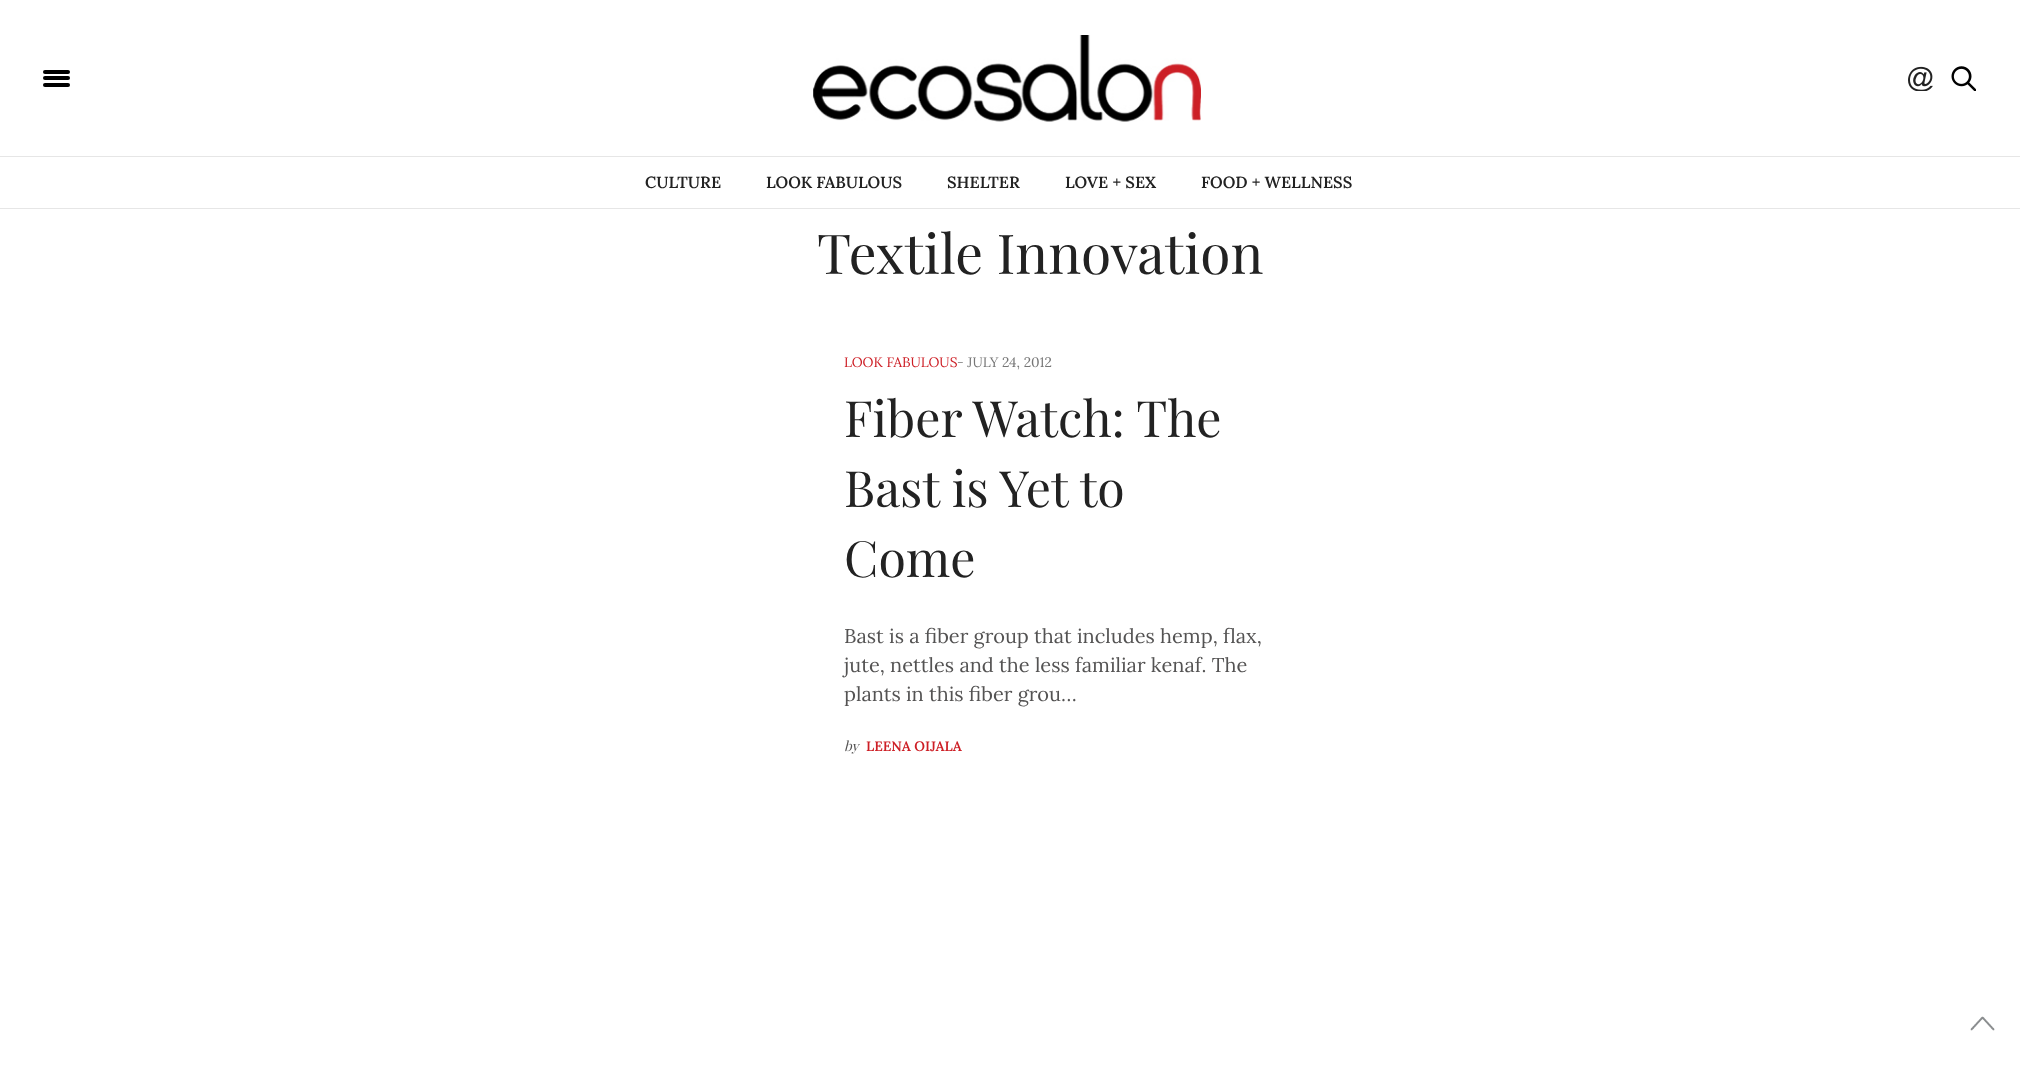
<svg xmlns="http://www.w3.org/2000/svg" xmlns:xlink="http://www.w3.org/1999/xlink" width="2020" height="1074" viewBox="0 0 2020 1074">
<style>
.cls-1{font:600 16.25px Lora;fill:#222222}
.cls-2{font:55px Playfair Display;fill:#222222}
.cls-3{font:13.75px Lora;fill:#cd1e25}
.cls-4{font:13.75px Lora;fill:#767676}
.cls-5{font:50px Playfair Display;fill:#222222}
.cls-6{font:20px Lora;fill:#545353}
.cls-7{font:italic 13.75px Playfair Display;fill:#545353}
.cls-8{font:600 13.75px Lora;fill:#cd1e25}
</style>
<rect width="100%" height="100%" fill="#ffffff"/>
<rect fill="#e6e6e6" x="0" y="156" width="2020" height="1"/>
<rect fill="#000000" x="43" y="70" width="27" height="4" rx="2"/>
<rect fill="#000000" x="43" y="76" width="27" height="4" rx="2"/>
<rect fill="#000000" x="43" y="83" width="27" height="4" rx="2"/>
<image xlink:href="image0.png" x="813" y="35" width="388" height="87"/>
<image xlink:href="image1.png" x="1908" y="66" width="25" height="25"/>
<image xlink:href="image2.png" x="1951" y="66" width="25" height="25"/>
<rect fill="#e6e6e6" x="0" y="208" width="2020" height="1"/>
<image xlink:href="image3.png" x="1970" y="1016" width="25" height="15"/>
<text class="cls-1" x="645" y="188">CULTURE</text>
<text class="cls-1" x="766" y="188">LOOK FABULOUS</text>
<text class="cls-1" x="947" y="188">SHELTER</text>
<text class="cls-1" x="1065" y="188">LOVE + SEX</text>
<text class="cls-1" x="1201" y="188">FOOD + WELLNESS</text>
<text class="cls-2" x="817" y="274">Textile Innovation</text>
<text class="cls-3" x="844" y="367">LOOK FABULOUS</text>
<text class="cls-4" x="957" y="367">- JULY 24, 2012</text>
<text class="cls-5"><tspan x="844" y="437">Fiber Watch: The</tspan><tspan x="844" y="507">Bast is Yet to</tspan><tspan x="844" y="577">Come</tspan></text>
<text class="cls-6"><tspan x="844" y="643">Bast is a fiber group that includes hemp, flax,</tspan><tspan x="844" y="672">jute, nettles and the less familiar kenaf. The</tspan><tspan x="844" y="701">plants in this fiber grou…</tspan></text>
<text class="cls-7" x="844" y="751">by</text>
<text class="cls-8" x="866" y="751">LEENA OIJALA</text>
</svg>
